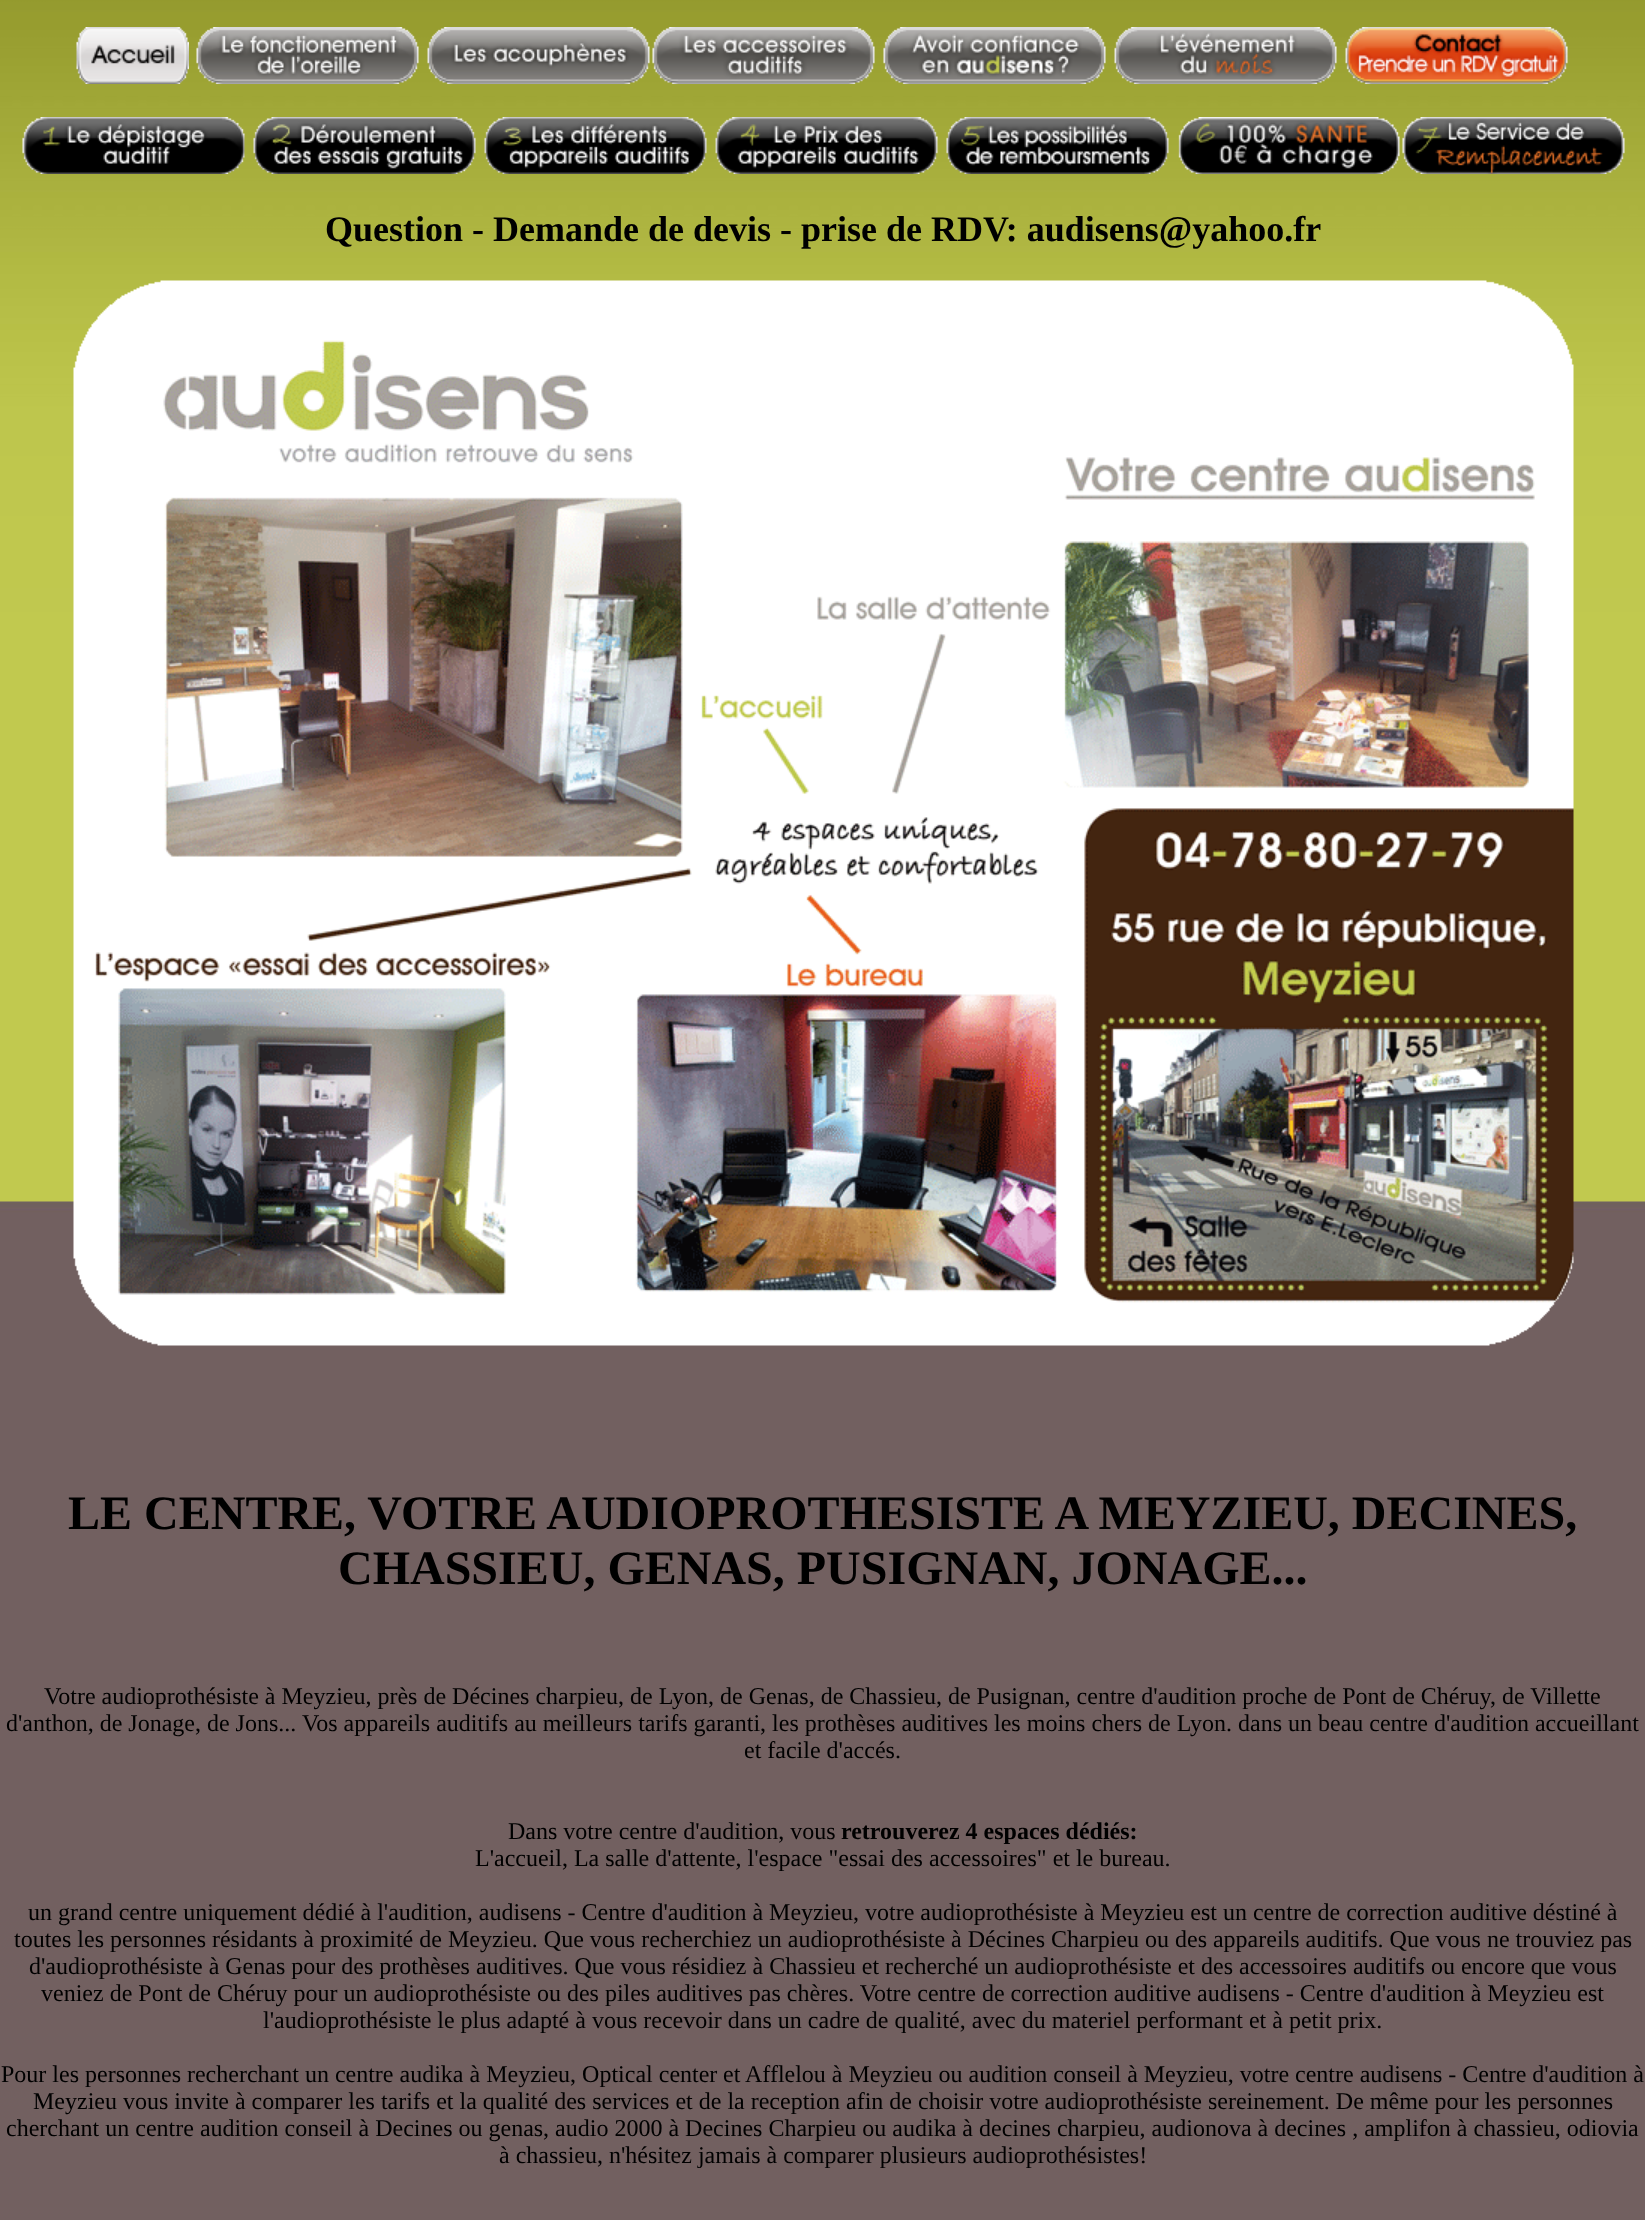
<svg xmlns="http://www.w3.org/2000/svg" xmlns:xlink="http://www.w3.org/1999/xlink" width="1645" height="2220" viewBox="0 0 1645 2220">
<style>
.cls-1{font:bold 36px Liberation Serif;fill:#000000}
.cls-2{font:bold 48px Liberation Serif;fill:#000000}
.cls-3{font:24px Liberation Serif;fill:#000000}
.cls-4{font:bold 24px Liberation Serif;fill:#000000}
</style>
<rect width="100%" height="100%" fill="#ffffff"/>
<image xlink:href="image0.png" x="0" y="0" width="1645" height="2220"/>
<image xlink:href="image1.png" x="76" y="27" width="113" height="57"/>
<image xlink:href="image2.png" x="196" y="27" width="223" height="57"/>
<image xlink:href="image3.png" x="427" y="27" width="223" height="57"/>
<image xlink:href="image4.png" x="652" y="27" width="223" height="57"/>
<image xlink:href="image5.png" x="883" y="27" width="223" height="57"/>
<image xlink:href="image6.png" x="1114" y="27" width="223" height="57"/>
<image xlink:href="image7.png" x="1345" y="27" width="223" height="57"/>
<image xlink:href="image8.png" x="22" y="117" width="223" height="57"/>
<image xlink:href="image9.png" x="253" y="117" width="223" height="57"/>
<image xlink:href="image10.png" x="484" y="117" width="223" height="57"/>
<image xlink:href="image11.png" x="715" y="117" width="223" height="57"/>
<image xlink:href="image12.png" x="946" y="117" width="223" height="57"/>
<image xlink:href="image13.png" x="1178" y="117" width="222" height="57"/>
<image xlink:href="image14.png" x="1402" y="117" width="223" height="57"/>
<image xlink:href="image15.png" x="73" y="280" width="1501" height="1066"/>
<text class="cls-1" x="325" y="241">Question - Demande de devis - prise de RDV: audisens@yahoo.fr</text>
<text class="cls-2" x="68" y="1529">LE CENTRE, VOTRE AUDIOPROTHESISTE A MEYZIEU, DECINES,</text>
<text class="cls-2" x="338" y="1584">CHASSIEU, GENAS, PUSIGNAN, JONAGE...</text>
<text class="cls-3" x="44" y="1704">Votre audioprothésiste à Meyzieu, près de Décines charpieu, de Lyon, de Genas, de Chassieu, de Pusignan, centre d'audition proche de Pont de Chéruy, de Villette</text>
<text class="cls-3" x="6" y="1731">d'anthon, de Jonage, de Jons...</text>
<text class="cls-3" x="302" y="1731">Vos appareils auditifs au meilleurs tarifs garanti, les prothèses auditives les moins chers de Lyon. dans un beau centre d'audition accueillant</text>
<text class="cls-3" x="744" y="1758">et facile d'accés.</text>
<text class="cls-3" x="508" y="1839">Dans votre centre d'audition, vous</text>
<text class="cls-4" x="841" y="1839">retrouverez 4 espaces dédiés:</text>
<text class="cls-3" x="475" y="1866">L'accueil, La salle d'attente, l'espace "essai des accessoires" et le bureau.</text>
<text class="cls-3" x="28" y="1920">un grand centre uniquement dédié à l'audition, audisens - Centre d'audition à Meyzieu, votre audioprothésiste à Meyzieu est un centre de correction auditive déstiné à</text>
<text class="cls-3" x="14" y="1947">toutes les personnes résidants à proximité de Meyzieu. Que vous recherchiez un audioprothésiste à Décines Charpieu ou des appareils auditifs. Que vous ne trouviez pas</text>
<text class="cls-3" x="29" y="1974">d'audioprothésiste à Genas pour des prothèses auditives. Que vous résidiez à Chassieu et recherché un audioprothésiste et des accessoires auditifs ou encore que vous</text>
<text class="cls-3" x="41" y="2001">veniez de Pont de Chéruy pour un audioprothésiste ou des piles auditives pas chères. Votre centre de correction auditive audisens - Centre d'audition à Meyzieu est</text>
<text class="cls-3" x="263" y="2028">l'audioprothésiste le plus adapté à vous recevoir dans un cadre de qualité, avec du materiel performant et à petit prix.</text>
<text class="cls-3" x="1" y="2082">Pour les personnes recherchant un centre audika à Meyzieu, Optical center</text>
<text class="cls-3" x="723" y="2082">et</text>
<text class="cls-3" x="745" y="2082">Afflelou à Meyzieu ou audition conseil à Meyzieu, votre centre audisens - Centre d'audition à</text>
<text class="cls-3" x="33" y="2109">Meyzieu vous invite à comparer les tarifs et la qualité des services et de la reception afin de choisir votre audioprothésiste sereinement. De même pour les personnes</text>
<text class="cls-3" x="6" y="2136">cherchant un centre audition conseil à Decines ou genas, audio 2000 à Decines Charpieu ou audika à decines charpieu, audionova à decines , amplifon à chassieu, odiovia</text>
<text class="cls-3" x="499" y="2163">à chassieu, n'hésitez jamais à comparer plusieurs audioprothésistes!</text>
</svg>
